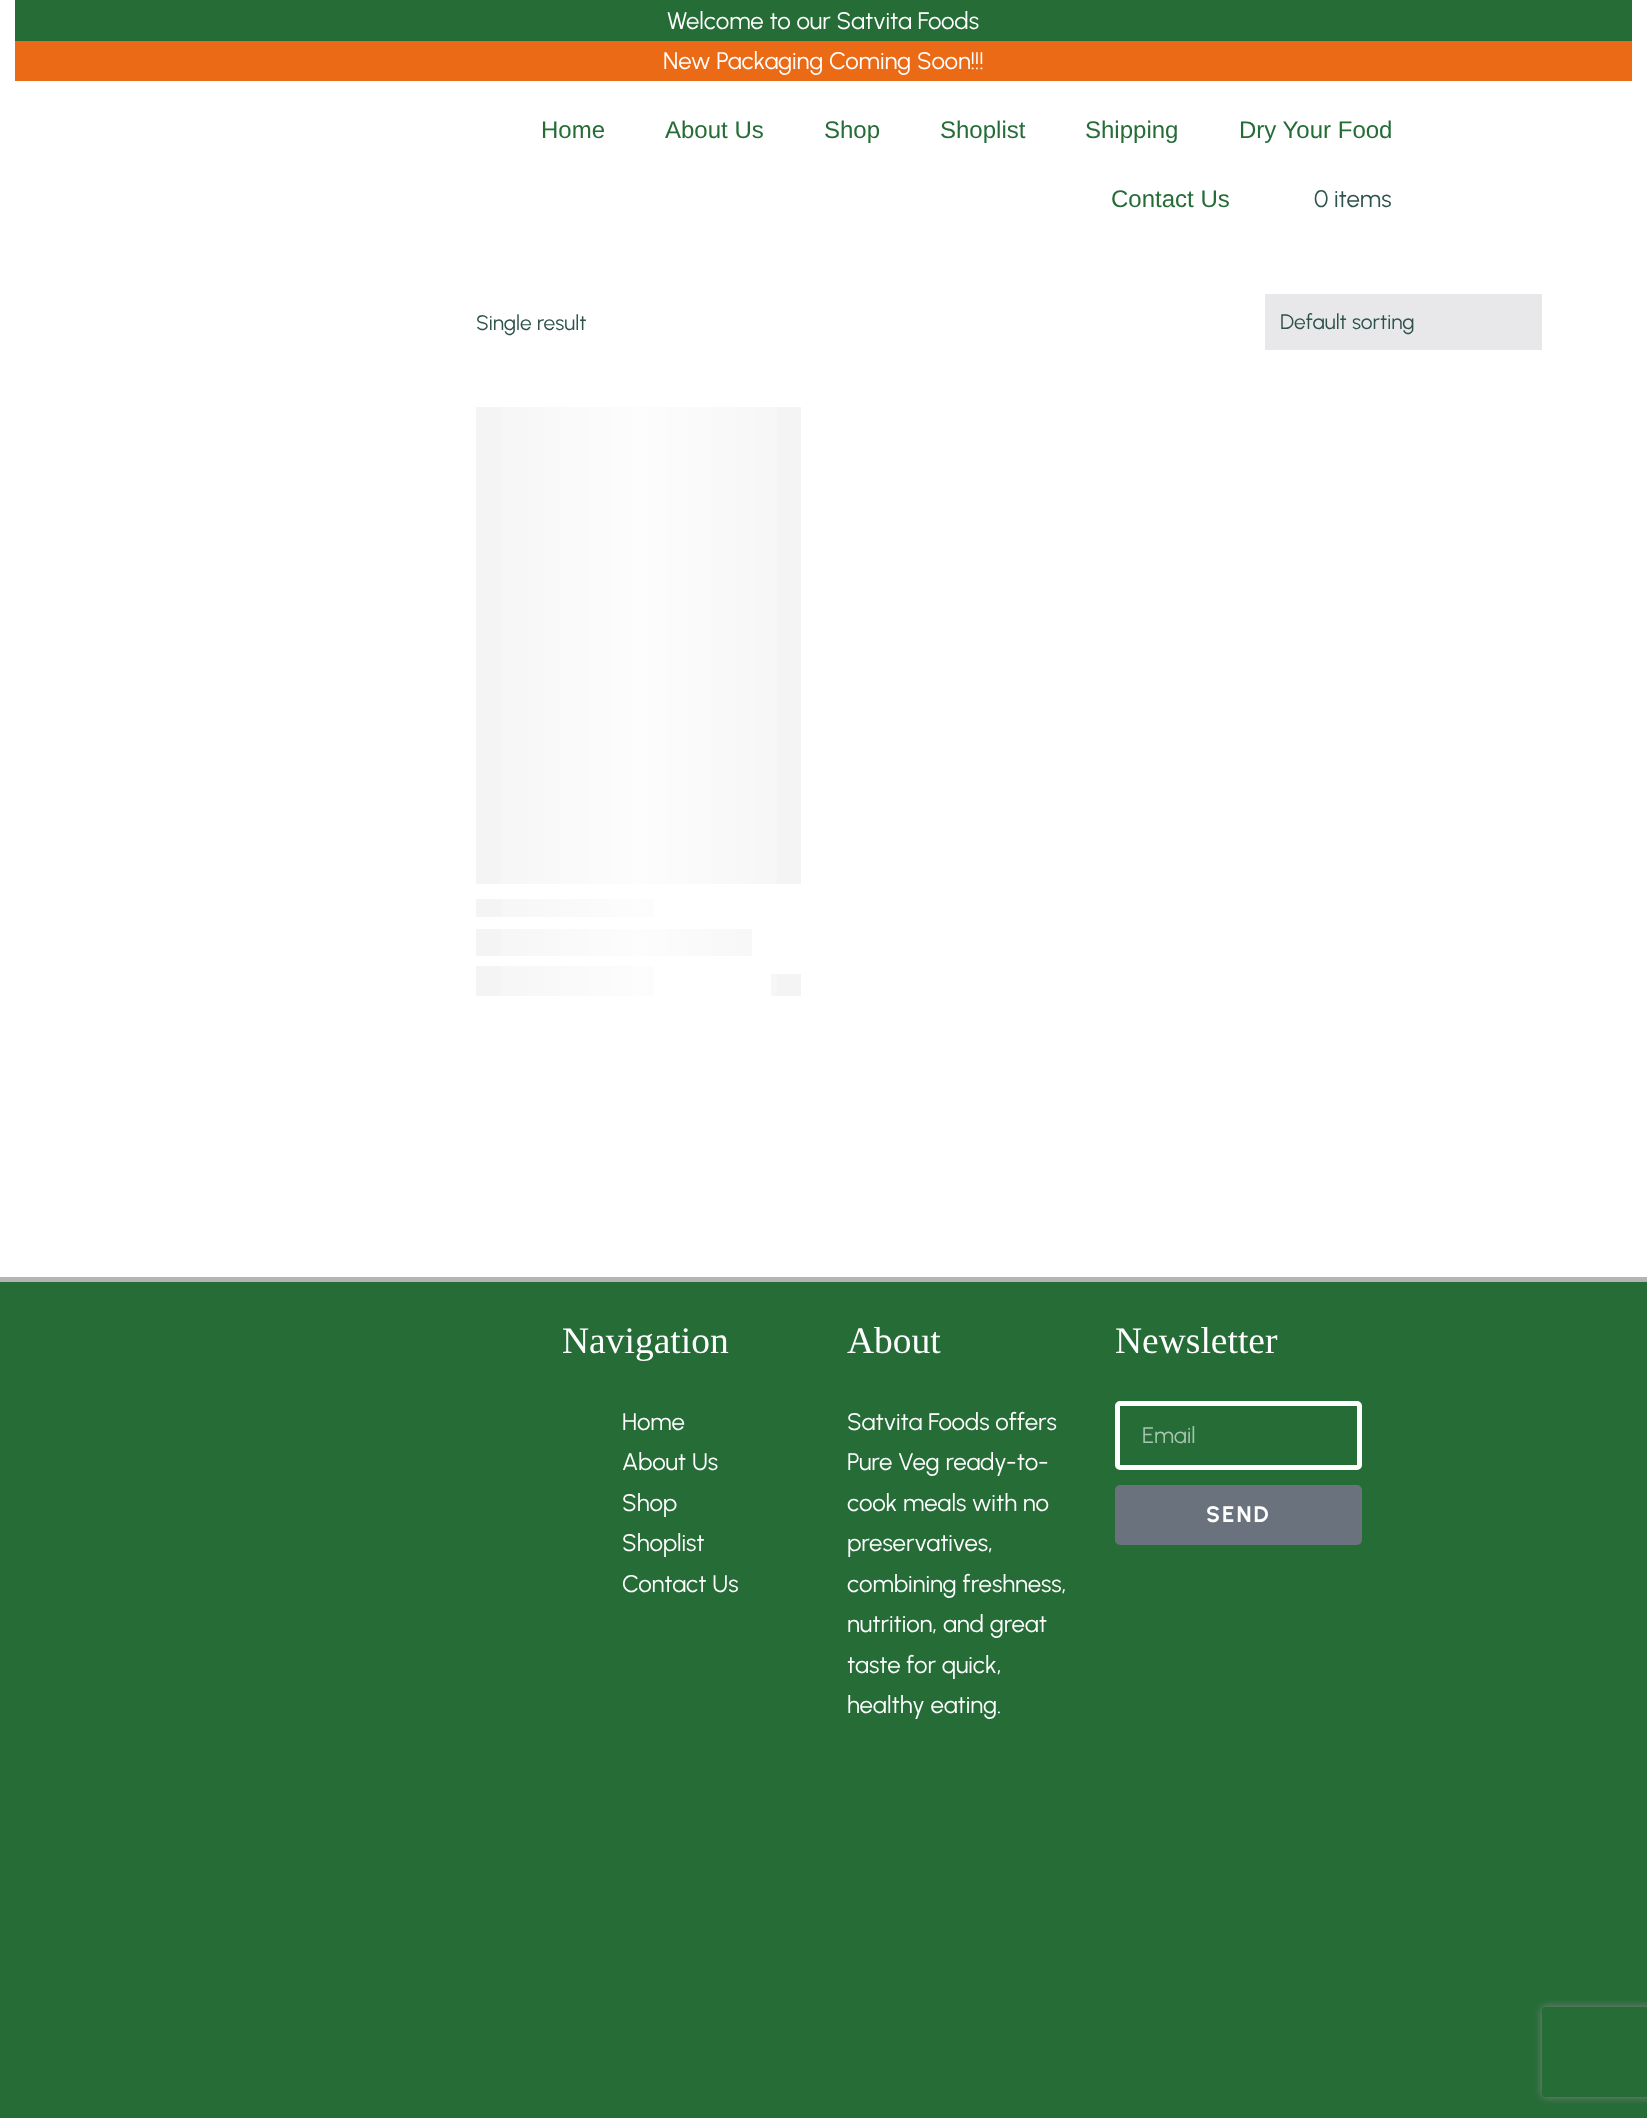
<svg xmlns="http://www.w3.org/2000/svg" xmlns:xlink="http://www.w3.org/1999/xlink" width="1647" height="2118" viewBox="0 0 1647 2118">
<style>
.cls-1{font:24px Urbanist;fill:#ffffff}
.cls-2{font:24px Liberation Sans;fill:#256c37}
.cls-3{font:24px Urbanist;fill:#2e524a}
.cls-4{font:21px Urbanist;fill:#2e524a}
.cls-5{font:37.5px Liberation Serif;fill:#ffffff}
.cls-6{font:22.5px Urbanist;fill:#a8c4af}
.cls-7{font:bold 22.5px Urbanist;letter-spacing:2px;fill:#ffffff}
</style>
<defs>
<linearGradient id="g1" gradientUnits="userSpaceOnUse" x1="313" y1="735" x2="965" y2="735"><stop offset="0.2" stop-color="#ffffff" stop-opacity="0"/><stop offset="0.5" stop-color="#ffffff" stop-opacity="0.8"/><stop offset="0.8" stop-color="#ffffff" stop-opacity="0"/></linearGradient>
<clipPath id="clip1"><path d="M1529 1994H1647V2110H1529ZM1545 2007H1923C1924.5 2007 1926 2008.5 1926 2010V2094C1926 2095.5 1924.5 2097 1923 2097H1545C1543.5 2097 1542 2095.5 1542 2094V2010C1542 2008.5 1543.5 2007 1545 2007Z" clip-rule="evenodd"/></clipPath>
</defs>
<rect width="100%" height="100%" fill="#ffffff"/>
<rect fill="#256c37" x="15" y="0" width="1617" height="41"/>
<rect fill="#ea6a16" x="15" y="41" width="1617" height="40"/>
<rect fill="#e8e8eb" x="1265" y="294" width="277" height="56"/>
<rect fill="#f4f4f4" x="476" y="966" width="178" height="30"/>
<rect fill="#f4f4f4" x="476" y="929" width="276" height="27"/>
<rect fill="#f4f4f4" x="476" y="899" width="178" height="18"/>
<rect fill="#f4f4f4" x="476" y="407" width="325" height="477"/>
<rect fill="#f4f4f4" x="771" y="974" width="30" height="22"/>
<rect fill="url(#g1)" x="501" y="407" width="276" height="589"/>
<rect fill="#256c37" x="0" y="1282" width="1647" height="836"/>
<rect fill="#b4b4b4" x="0" y="1277" width="1647" height="5"/>
<rect fill="none" stroke="#ffffff" stroke-width="5" x="1117.5" y="1403.5" width="242" height="64" rx="2.5"/>
<rect fill="#69727d" x="1115" y="1485" width="247" height="60" rx="5"/>
<g clip-path="url(#clip1)">
<rect fill="#808080" filter="blur(4px)" x="1542" y="2007" width="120" height="90" rx="3"/>
</g>
<text class="cls-1" x="667" y="29">Welcome to our Satvita Foods</text>
<text class="cls-1" x="663" y="69">New Packaging Coming Soon!!!</text>
<text class="cls-2" x="541" y="138">Home</text>
<text class="cls-2" x="665" y="138">About Us</text>
<text class="cls-2" x="824" y="138">Shop</text>
<text class="cls-2" x="940" y="138">Shoplist</text>
<text class="cls-2" x="1085" y="138">Shipping</text>
<text class="cls-2" x="1239" y="138">Dry Your Food</text>
<text class="cls-2" x="1111" y="207">Contact Us</text>
<text class="cls-3" x="1314" y="207">0 items</text>
<text class="cls-4" x="476" y="330">Single result</text>
<text class="cls-4" x="1280" y="329">Default sorting</text>
<text class="cls-5" x="562" y="1353">Navigation</text>
<text class="cls-1"><tspan x="622" y="1430">Home</tspan><tspan x="622" y="1470">About Us</tspan><tspan x="622" y="1511">Shop</tspan><tspan x="622" y="1551">Shoplist</tspan><tspan x="622" y="1592">Contact Us</tspan></text>
<text class="cls-5" x="847" y="1353">About</text>
<text class="cls-1"><tspan x="847" y="1430">Satvita Foods offers</tspan><tspan x="847" y="1470">Pure Veg ready-to-</tspan><tspan x="847" y="1511">cook meals with no</tspan><tspan x="847" y="1551">preservatives,</tspan><tspan x="847" y="1592">combining freshness,</tspan><tspan x="847" y="1632">nutrition, and great</tspan><tspan x="847" y="1673">taste for quick,</tspan><tspan x="847" y="1713">healthy eating.</tspan></text>
<text class="cls-5" x="1115" y="1353">Newsletter</text>
<text class="cls-6" x="1142" y="1443">Email</text>
<text class="cls-7" x="1206" y="1522">SEND</text>
</svg>
